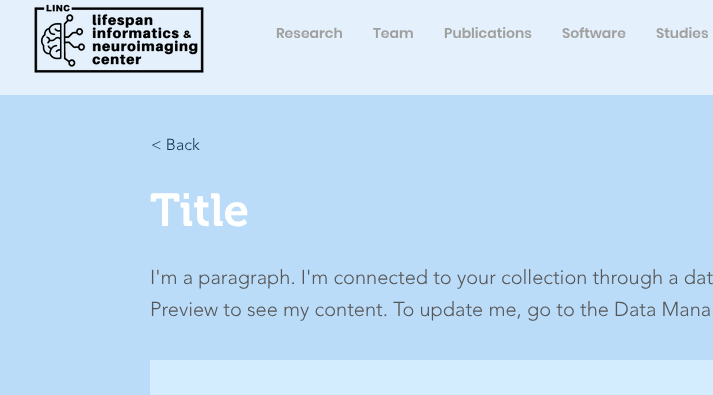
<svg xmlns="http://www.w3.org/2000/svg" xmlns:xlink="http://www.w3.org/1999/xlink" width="713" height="395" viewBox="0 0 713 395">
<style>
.cls-1{font:600 14px Poppins;fill:#a0a09f}
.cls-2{font:300 16px 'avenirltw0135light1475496';fill:#14344e}
.cls-3{font:600 46px 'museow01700';fill:#ffffff}
.cls-4{font:300 20px 'avenirltw0135light1475496';fill:#565656}
</style>
<rect width="100%" height="100%" fill="#bbdcf8"/>
<rect fill="#e4f1fc" x="0" y="0" width="713" height="95"/>
<image xlink:href="image0.png" x="34" y="4" width="170" height="69"/>
<rect fill="#d3edff" x="150" y="360" width="563" height="35"/>
<text class="cls-1" x="276" y="38">Research</text>
<text class="cls-1" x="373" y="38">Team</text>
<text class="cls-1" x="444" y="38">Publications</text>
<text class="cls-1" x="562" y="38">Software</text>
<text class="cls-1" x="656" y="38">Studies</text>
<text class="cls-2" x="151" y="150">&lt; Back</text>
<text class="cls-3" x="150" y="226">Title</text>
<text class="cls-4"><tspan x="150" y="284">I'm a paragraph. I'm connected to your collection through a dat</tspan><tspan x="150" y="316">Preview to see my content. To update me, go to the Data Mana</tspan></text>
</svg>
